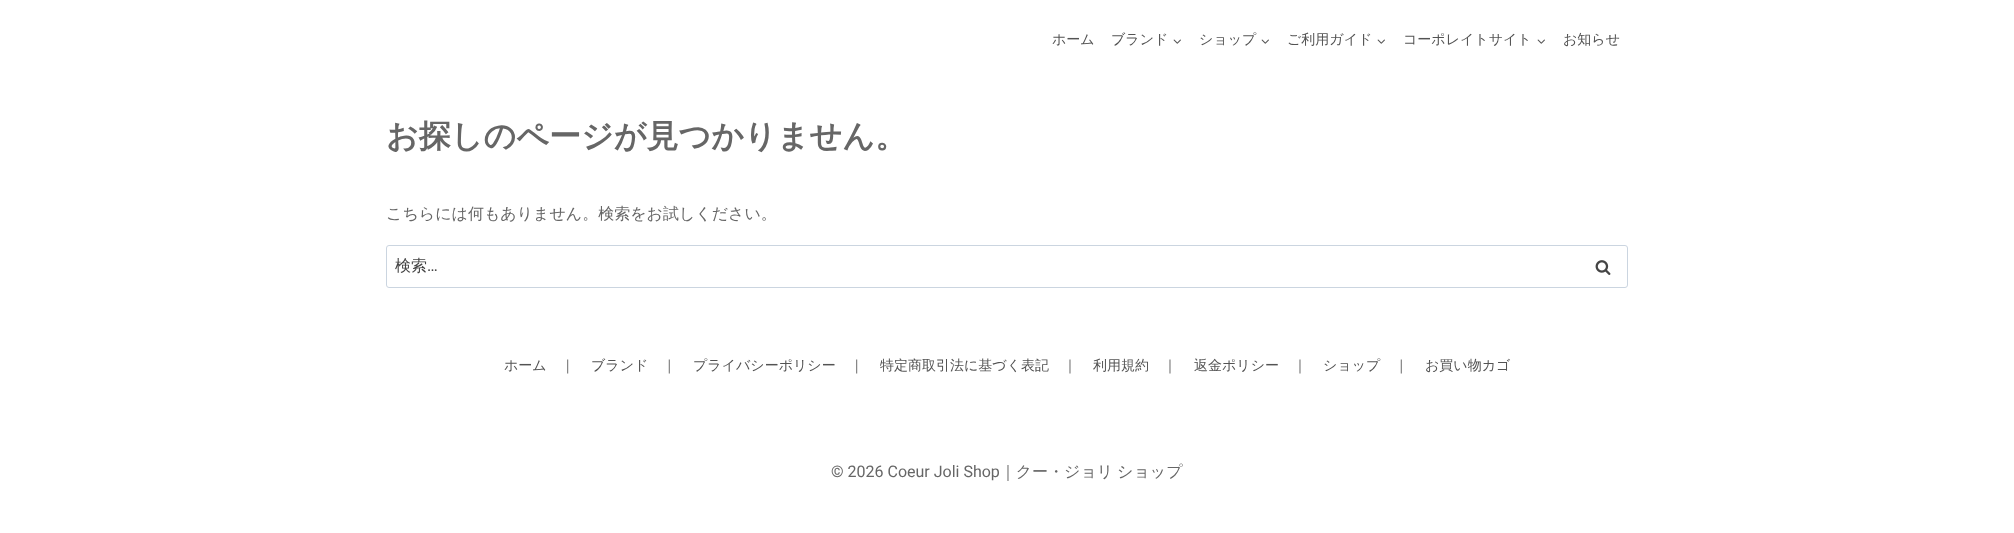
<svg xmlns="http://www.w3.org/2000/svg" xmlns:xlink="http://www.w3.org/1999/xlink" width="2014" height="533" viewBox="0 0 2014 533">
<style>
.cls-1{font:500 14px WenQuanYi Zen Hei;fill:#535353}
.cls-2{font:bold 32px WenQuanYi Zen Hei;fill:#666666}
.cls-3{font:500 16px WenQuanYi Zen Hei;fill:#666666}
.cls-4{font:500 16px WenQuanYi Zen Hei;fill:#444444}
.cls-5{font:16px Roboto;fill:#444444}
.cls-6{font:16px Roboto;fill:#666666}
</style>
<rect width="100%" height="100%" fill="#ffffff"/>
<image xlink:href="image0.png" x="1173" y="39" width="8" height="5"/>
<image xlink:href="image0.png" x="1261" y="39" width="8" height="5"/>
<image xlink:href="image0.png" x="1377" y="39" width="8" height="5"/>
<image xlink:href="image0.png" x="1537" y="39" width="8" height="5"/>
<rect fill="none" stroke="#cbd5e0" x="386.5" y="245.5" width="1241" height="42" rx="2.5"/>
<image xlink:href="image1.png" x="1595" y="260" width="16" height="15"/>
<text class="cls-1" x="1052" y="44">ホーム</text>
<text class="cls-1" x="1111" y="44">ブランド</text>
<text class="cls-1" x="1199" y="44">ショップ</text>
<text class="cls-1" x="1287" y="44">ご利用ガイド</text>
<text class="cls-1" x="1403" y="44">コーポレイトサイト</text>
<text class="cls-1" x="1563" y="44">お知らせ</text>
<text class="cls-2" x="386" y="147">お探しのページが見つかりません。</text>
<text class="cls-3" x="386" y="219">こちらには何もありません。検索をお試しください。</text>
<text class="cls-4" x="395" y="271">検索</text>
<text class="cls-5" x="427" y="271">…</text>
<text class="cls-1" x="504" y="370">ホーム　｜</text>
<text class="cls-1" x="591" y="370">ブランド　｜</text>
<text class="cls-1" x="693" y="370">プライバシーポリシー　｜</text>
<text class="cls-1" x="880" y="370">特定商取引法に基づく表記　｜</text>
<text class="cls-1" x="1093" y="370">利用規約　｜</text>
<text class="cls-1" x="1194" y="370">返金ポリシー　｜</text>
<text class="cls-1" x="1323" y="370">ショップ　｜</text>
<text class="cls-1" x="1425" y="370">お買い物カゴ</text>
<text class="cls-6" x="831" y="477">© 2026 Coeur Joli Shop</text>
<text class="cls-3" x="1000" y="477">｜クー・ジョリ</text>
<text class="cls-3" x="1117" y="477">ショップ</text>
</svg>
